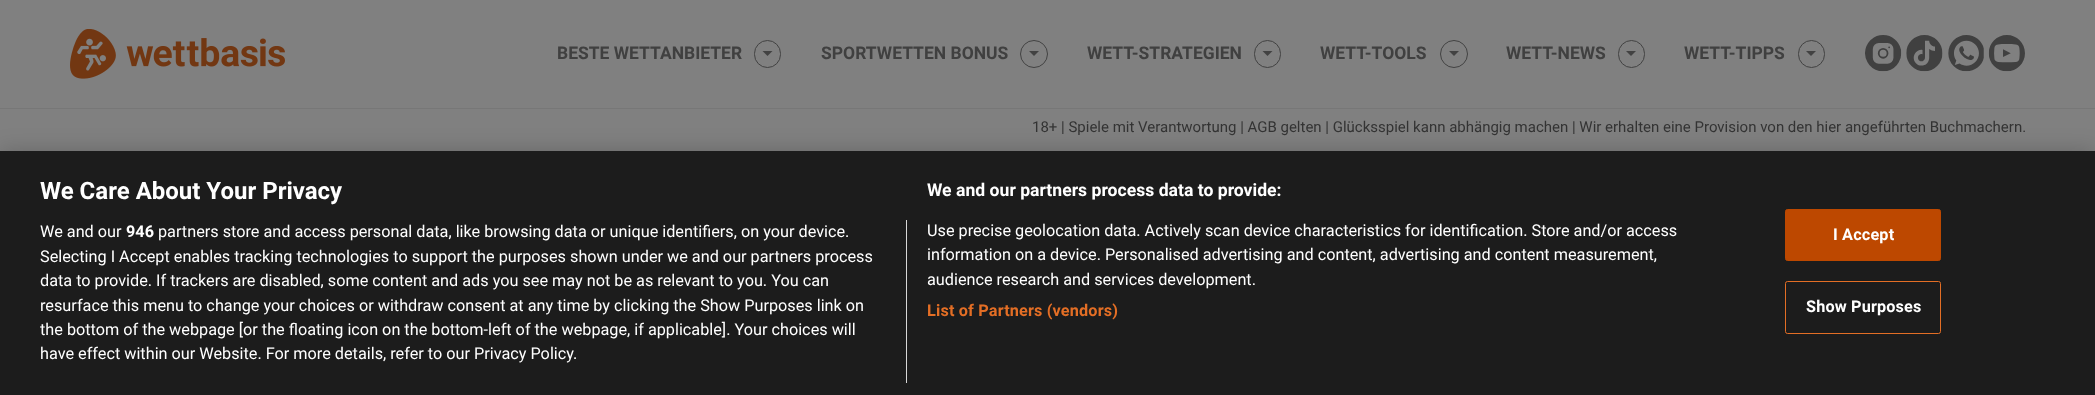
<svg xmlns="http://www.w3.org/2000/svg" xmlns:xlink="http://www.w3.org/1999/xlink" width="2095" height="395" viewBox="0 0 2095 395">
<style>
.cls-1{font:bold 17.5px Roboto;fill:#404040}
.cls-2{font:15px Roboto;fill:#333333}
.cls-3{font:bold 24px Roboto;fill:#ffffff}
.cls-4{font:bold 17.6px Roboto;fill:#ffffff}
.cls-5{font:16.25px Roboto;fill:#ffffff}
.cls-6{font:bold 16.25px Roboto;letter-spacing:0.15px;fill:#e36e25}
.cls-7{font:bold 16.25px Roboto;fill:#ffffff}
.cls-8{font:bold 16.25px Roboto;letter-spacing:0.15px;fill:#ffffff}
</style>
<rect width="100%" height="100%" fill="#808080"/>
<rect fill="#777777" x="0" y="108" width="2095" height="1"/>
<image xlink:href="image0.png" x="70" y="29" width="215" height="50"/>
<rect fill="none" stroke="#424242" x="754.5" y="40.5" width="26" height="27" rx="13"/>
<path fill="#424242" d="M762.5 51H772.5L767.5 56Z"/>
<circle fill="none" stroke="#424242" cx="1034" cy="54" r="13.5"/>
<path fill="#424242" d="M1029 51H1039L1034 56Z"/>
<rect fill="none" stroke="#424242" x="1254.5" y="40.5" width="26" height="27" rx="13"/>
<path fill="#424242" d="M1262.5 51H1272.5L1267.5 56Z"/>
<circle fill="none" stroke="#424242" cx="1454" cy="54" r="13.5"/>
<path fill="#424242" d="M1449 51H1459L1454 56Z"/>
<rect fill="none" stroke="#424242" x="1618.5" y="40.5" width="26" height="27" rx="13"/>
<path fill="#424242" d="M1626 51H1636L1631 56Z"/>
<rect fill="none" stroke="#424242" x="1798.5" y="40.5" width="26" height="27" rx="13"/>
<path fill="#424242" d="M1806 51H1816L1811 56Z"/>
<image xlink:href="image1.png" x="1865" y="35" width="37" height="37"/>
<image xlink:href="image2.png" x="1906" y="35" width="37" height="37"/>
<image xlink:href="image3.png" x="1948" y="35" width="36" height="37"/>
<image xlink:href="image4.png" x="1988" y="35" width="37" height="37"/>
<rect fill="#000000" fill-opacity="0.2" filter="blur(11px)" x="0" y="151" width="2095" height="244"/>
<rect fill="#1c1c1c" x="0" y="151" width="2095" height="244"/>
<rect fill="#d8d8d8" x="906" y="220" width="1" height="163"/>
<rect fill="#bd4800" stroke="#bd4800" x="1785.5" y="209.5" width="155" height="51" rx="2"/>
<rect fill="none" stroke="#e36e25" x="1785.5" y="281.5" width="155" height="52" rx="2"/>
<text class="cls-1" x="557" y="59">BESTE WETTANBIETER</text>
<text class="cls-1" x="821" y="59">SPORTWETTEN BONUS</text>
<text class="cls-1" x="1087" y="59">WETT-STRATEGIEN</text>
<text class="cls-1" x="1320" y="59">WETT-TOOLS</text>
<text class="cls-1" x="1506" y="59">WETT-NEWS</text>
<text class="cls-1" x="1684" y="59">WETT-TIPPS</text>
<text class="cls-2" x="1032" y="132">18+ | Spiele mit Verantwortung | AGB gelten | Glücksspiel kann abhängig machen | Wir erhalten eine Provision von den hier angeführten Buchmachern.</text>
<text class="cls-3" x="40" y="199">We Care About Your Privacy</text>
<text class="cls-4" x="927" y="196">We and our partners process data to provide:</text>
<text class="cls-5"><tspan x="927" y="236">Use precise geolocation data. Actively scan device characteristics for identification. Store and/or access</tspan><tspan x="927" y="260">information on a device. Personalised advertising and content, advertising and content measurement,</tspan><tspan x="927" y="285">audience research and services development.</tspan></text>
<text class="cls-6" x="927" y="316">List of Partners (vendors)</text>
<text class="cls-5" x="40" y="237">We and our</text>
<text class="cls-7" x="126" y="237">946</text>
<text class="cls-5" x="158" y="237">partners store and access personal data, like browsing data or unique identifiers, on your device.</text>
<text class="cls-5"><tspan x="40" y="262">Selecting I Accept enables tracking technologies to support the purposes shown under we and our partners process</tspan><tspan x="40" y="286">data to provide. If trackers are disabled, some content and ads you see may not be as relevant to you. You can</tspan><tspan x="40" y="311">resurface this menu to change your choices or withdraw consent at any time by clicking the Show Purposes link on</tspan><tspan x="40" y="335">the bottom of the webpage [or the floating icon on the bottom-left of the webpage, if applicable]. Your choices will</tspan><tspan x="40" y="359">have effect within our Website. For more details, refer to our Privacy Policy.</tspan></text>
<text class="cls-8" x="1833" y="240">I Accept</text>
<text class="cls-8" x="1806" y="312">Show Purposes</text>
</svg>
